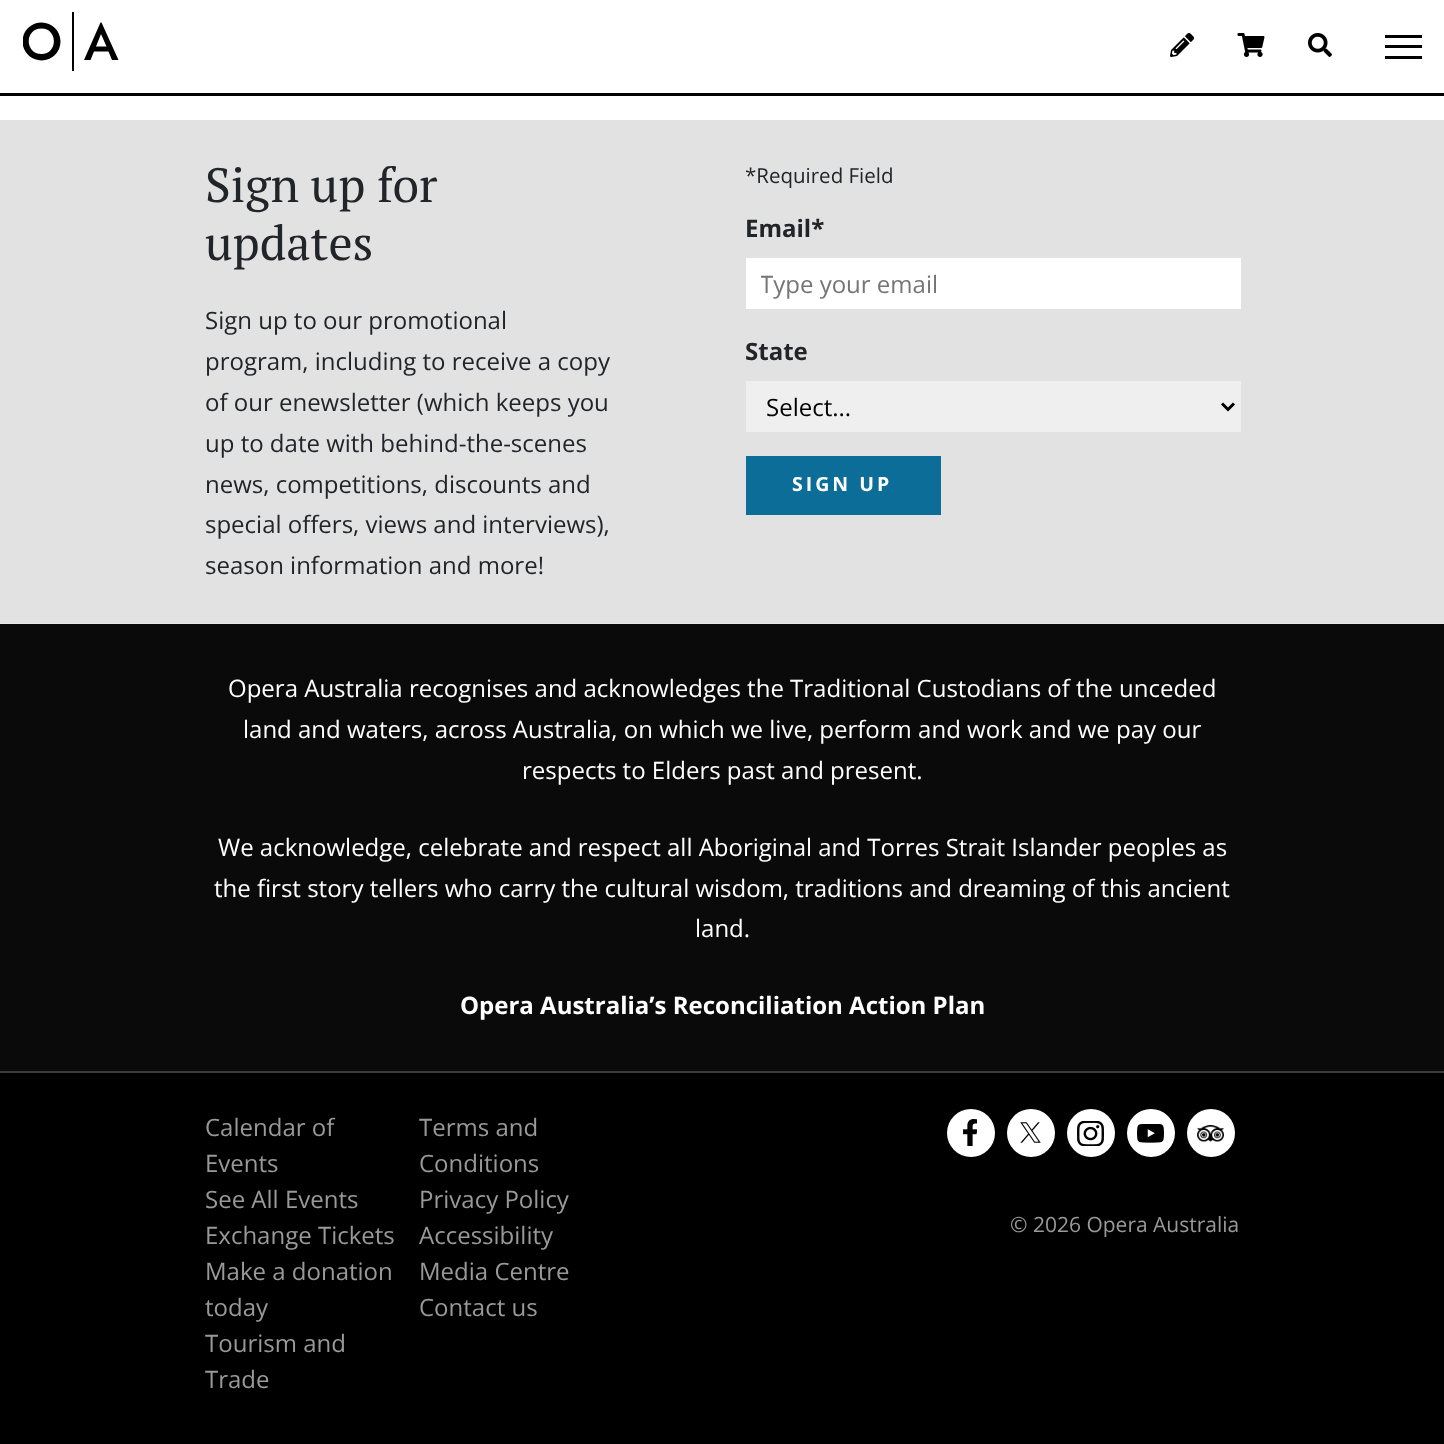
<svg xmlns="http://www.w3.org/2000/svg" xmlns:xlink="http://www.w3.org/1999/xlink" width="1444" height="1444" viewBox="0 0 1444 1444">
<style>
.cls-1{font:48px PT Serif;fill:#212529}
.cls-2{font:24px Open Sans;fill:#212529}
.cls-3{font:20.5px Open Sans;fill:#212529}
.cls-4{font:bold 24px Open Sans;fill:#212529}
.cls-5{font:24px Open Sans;fill:#757575}
.cls-6{font:24px Open Sans;fill:#000000}
.cls-7{font:bold 19.5px Open Sans;letter-spacing:3px;fill:#ffffff}
.cls-8{font:24px Open Sans;fill:#ffffff}
.cls-9{font:bold 24px Open Sans;fill:#ffffff}
.cls-10{font:24px Open Sans;fill:#999999}
.cls-11{font:21px Open Sans;fill:#999999}
</style>
<defs>
<clipPath id="clip1"><rect x="23" y="12" width="96" height="59"/></clipPath>
<clipPath id="clip2"><rect x="761" y="267" width="465" height="33"/></clipPath>
</defs>
<rect width="100%" height="100%" fill="#ffffff"/>
<rect fill="#000000" x="0" y="93" width="1444" height="3"/>
<rect fill="#000000" x="72" y="12" width="2" height="59"/>
<path fill="#000000" d="M112 60L108.5 51.5H94L90.5 60H84L100.5 22.5H101.5L118.5 60ZM101 34L96 46.5H106.5Z"/>
<g clip-path="url(#clip1)">
<path fill="#000000" d="M41.5 22.5C31 22.5 22.5 31 22.5 41.5C22.5 52 31 60.5 41.5 60.5C52 60.5 60.5 52 60.5 41.5C60.5 31 52 22.5 41.5 22.5ZM41.5 54C24.5 54 24.5 28.5 41.5 28.5C58 28.5 58 54 41.5 54Z"/>
</g>
<image xlink:href="image0.png" x="1170" y="33" width="24" height="24"/>
<image xlink:href="image1.png" x="1237" y="33" width="28" height="24"/>
<image xlink:href="image2.png" x="1308" y="33" width="24" height="24"/>
<rect fill="#000000" x="1385" y="35" width="37" height="3"/>
<rect fill="#000000" x="1385" y="45" width="37" height="3"/>
<rect fill="#000000" x="1385" y="56" width="37" height="3"/>
<rect fill="#000000" x="0" y="1073" width="1444" height="371"/>
<rect fill="#e2e2e2" x="0" y="120" width="1444" height="503"/>
<rect fill="#e8e8e8" x="0" y="623" width="1444" height="1"/>
<rect fill="#ffffff" x="746" y="258" width="495" height="51"/>
<rect fill="#efefef" x="746" y="381" width="495" height="51"/>
<path fill="none" stroke="#000000" stroke-width="3" d="M1222 403.5L1228 409.5L1234 403.5"/>
<rect fill="#0c6d99" x="746" y="456" width="195" height="59"/>
<rect fill="#0a0a0a" x="0" y="624" width="1444" height="447"/>
<rect fill="#3b3b3b" x="0" y="1071" width="1444" height="2"/>
<circle fill="#ffffff" cx="971" cy="1133" r="24"/>
<image xlink:href="image3.png" x="963" y="1119" width="14" height="27"/>
<circle fill="#ffffff" cx="1031" cy="1133" r="24"/>
<image xlink:href="image4.png" x="1020" y="1122" width="21" height="21"/>
<circle fill="#ffffff" cx="1091" cy="1133" r="24"/>
<image xlink:href="image5.png" x="1077" y="1121" width="27" height="25"/>
<circle fill="#ffffff" cx="1151" cy="1133" r="24"/>
<image xlink:href="image6.png" x="1137" y="1124" width="27" height="19"/>
<circle fill="#ffffff" cx="1211" cy="1133" r="24"/>
<image xlink:href="image7.png" x="1197" y="1125" width="27" height="17"/>
<text class="cls-1"><tspan x="205" y="202">Sign up for</tspan><tspan x="205" y="260">updates</tspan></text>
<text class="cls-2"><tspan x="205" y="329">Sign up to our promotional</tspan><tspan x="205" y="370">program, including to receive a copy</tspan><tspan x="205" y="411">of our enewsletter (which keeps you</tspan><tspan x="205" y="452">up to date with behind-the-scenes</tspan><tspan x="205" y="493">news, competitions, discounts and</tspan><tspan x="205" y="533">special offers, views and interviews),</tspan><tspan x="205" y="574">season information and more!</tspan></text>
<text class="cls-3" x="745" y="183">*Required Field</text>
<text class="cls-4" x="745" y="237">Email*</text>
<g clip-path="url(#clip2)">
<text class="cls-5" x="760" y="293">Type your email</text>
</g>
<text class="cls-4" x="745" y="360">State</text>
<text class="cls-6" x="766" y="416">Select...</text>
<text class="cls-7" x="792" y="491">SIGN UP</text>
<text class="cls-8" x="228" y="697">Opera Australia recognises and acknowledges the Traditional Custodians of the unceded</text>
<text class="cls-8" x="243" y="738">land and waters, across Australia, on which we live, perform and work and we pay our</text>
<text class="cls-8" x="522" y="779">respects to Elders past and present.</text>
<text class="cls-8" x="218" y="856">We acknowledge, celebrate and respect all Aboriginal and Torres Strait Islander peoples as</text>
<text class="cls-8" x="214" y="897">the first story tellers who carry the cultural wisdom, traditions and dreaming of this ancient</text>
<text class="cls-8" x="695" y="937">land.</text>
<text class="cls-9" x="460" y="1014">Opera Australia’s Reconciliation Action Plan</text>
<text class="cls-10"><tspan x="205" y="1136">Calendar of</tspan><tspan x="205" y="1172">Events</tspan></text>
<text class="cls-10"><tspan x="419" y="1136">Terms and</tspan><tspan x="419" y="1172">Conditions</tspan></text>
<text class="cls-10" x="205" y="1208">See All Events</text>
<text class="cls-10" x="419" y="1208">Privacy Policy</text>
<text class="cls-10" x="205" y="1244">Exchange Tickets</text>
<text class="cls-10" x="419" y="1244">Accessibility</text>
<text class="cls-10"><tspan x="205" y="1280">Make a donation</tspan><tspan x="205" y="1316">today</tspan></text>
<text class="cls-10"><tspan x="419" y="1280">Media Centre</tspan><tspan x="419" y="1316">Contact us</tspan></text>
<text class="cls-10"><tspan x="205" y="1352">Tourism and</tspan><tspan x="205" y="1388">Trade</tspan></text>
<text class="cls-11" x="1010" y="1232">© 2026 Opera Australia</text>
</svg>
